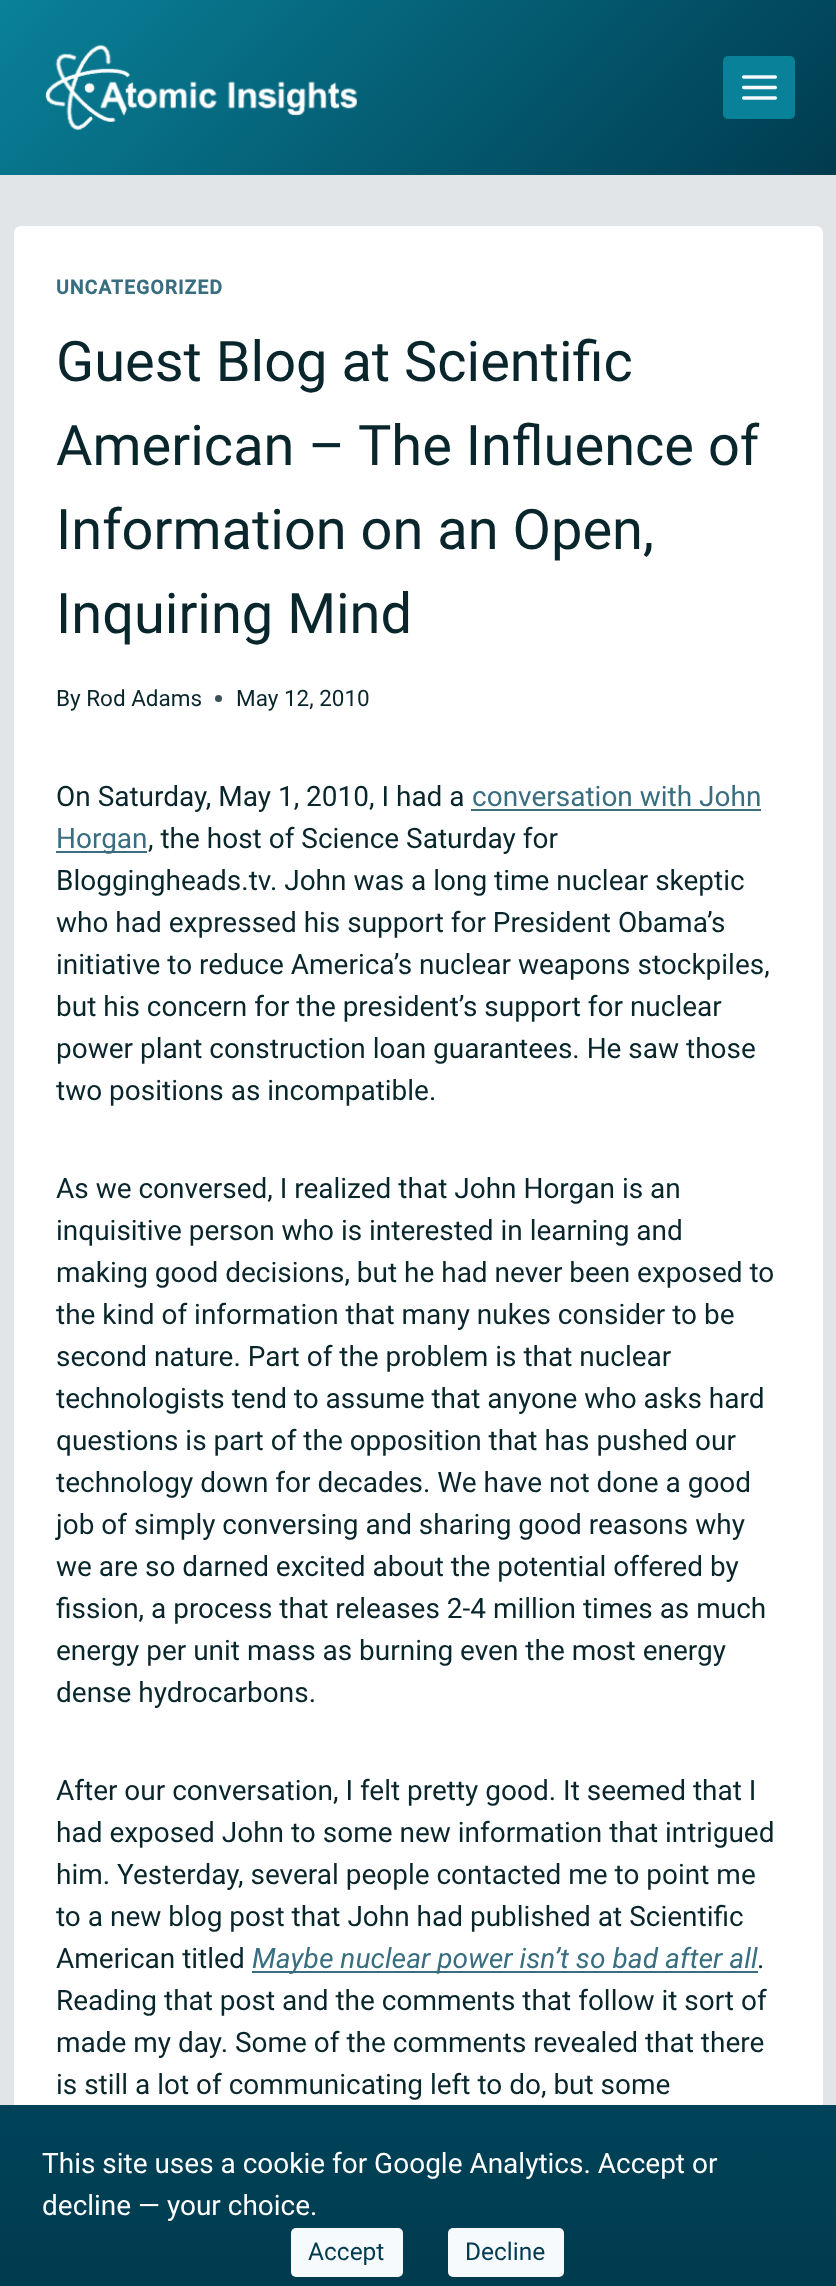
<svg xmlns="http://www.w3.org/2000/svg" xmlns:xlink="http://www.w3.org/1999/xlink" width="836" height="2286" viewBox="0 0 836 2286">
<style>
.cls-1{font:bold 19.5px Roboto;letter-spacing:1px;fill:#386e80}
.cls-2{font:56px Roboto;fill:#09262c}
.cls-3{font:22.5px Roboto;fill:#09262c}
.cls-4{font:28px Roboto;fill:#09262c}
.cls-5{font:28px Roboto;fill:#386e80}
.cls-6{font:italic 28px Roboto;fill:#386e80}
.cls-7{font:28px Roboto;fill:#ffffff}
.cls-8{font:24.5px Roboto;fill:#003b4f}
</style>
<defs>
<linearGradient id="g1" gradientUnits="userSpaceOnUse" x1="165" y1="-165" x2="671" y2="340"><stop offset="0" stop-color="#098199"/><stop offset="1" stop-color="#003b4f"/></linearGradient>
<linearGradient id="g2" gradientUnits="userSpaceOnUse" x1="418" y1="2105" x2="418" y2="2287"><stop offset="0" stop-color="#004359"/><stop offset="1" stop-color="#003b4f"/></linearGradient>
</defs>
<rect width="100%" height="100%" fill="#e2e5e7"/>
<rect fill="url(#g1)" x="0" y="0" width="836" height="175"/>
<image xlink:href="image0.png" x="45" y="44" width="312" height="86"/>
<rect fill="#098199" x="723" y="56" width="72" height="63" rx="5"/>
<image xlink:href="image1.png" x="742" y="75" width="35" height="25"/>
<path fill="#ffffff" d="M21 226H816C820 226 823 229 823 233V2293H14V233C14 229 17 226 21 226Z"/>
<circle fill="#3a5156" cx="218.5" cy="698.5" r="3.5"/>
<rect fill="#386e80" x="471" y="809" width="290" height="2"/>
<rect fill="#386e80" x="56" y="851" width="91" height="2"/>
<rect fill="#386e80" x="252" y="1971" width="506" height="2"/>
<rect fill="url(#g2)" x="0" y="2105" width="836" height="181"/>
<rect fill="#f7fafc" x="291" y="2228" width="112" height="49" rx="5"/>
<rect fill="#f7fafc" x="448" y="2228" width="116" height="49" rx="5"/>
<text class="cls-1" x="56" y="294">UNCATEGORIZED</text>
<text class="cls-2"><tspan x="56" y="381">Guest Blog at Scientific</tspan><tspan x="56" y="465">American – The Influence of</tspan><tspan x="56" y="549">Information on an Open,</tspan><tspan x="56" y="633">Inquiring Mind</tspan></text>
<text class="cls-3" x="56" y="706">By Rod Adams</text>
<text class="cls-3" x="236" y="706">May 12, 2010</text>
<text class="cls-4" x="56" y="806">On Saturday, May 1, 2010, I had a</text>
<text class="cls-5" x="472" y="806">conversation with John</text>
<text class="cls-5" x="56" y="848">Horgan</text>
<text class="cls-4" x="148" y="848">, the host of Science Saturday for</text>
<text class="cls-4"><tspan x="56" y="890">Bloggingheads.tv. John was a long time nuclear skeptic</tspan><tspan x="56" y="932">who had expressed his support for President Obama’s</tspan><tspan x="56" y="974">initiative to reduce America’s nuclear weapons stockpiles,</tspan><tspan x="56" y="1016">but his concern for the president’s support for nuclear</tspan><tspan x="56" y="1058">power plant construction loan guarantees. He saw those</tspan><tspan x="56" y="1100">two positions as incompatible.</tspan></text>
<text class="cls-4"><tspan x="56" y="1198">As we conversed, I realized that John Horgan is an</tspan><tspan x="56" y="1240">inquisitive person who is interested in learning and</tspan><tspan x="56" y="1282">making good decisions, but he had never been exposed to</tspan><tspan x="56" y="1324">the kind of information that many nukes consider to be</tspan><tspan x="56" y="1366">second nature. Part of the problem is that nuclear</tspan><tspan x="56" y="1408">technologists tend to assume that anyone who asks hard</tspan><tspan x="56" y="1450">questions is part of the opposition that has pushed our</tspan><tspan x="56" y="1492">technology down for decades. We have not done a good</tspan><tspan x="56" y="1534">job of simply conversing and sharing good reasons why</tspan><tspan x="56" y="1576">we are so darned excited about the potential offered by</tspan><tspan x="56" y="1618">fission, a process that releases 2-4 million times as much</tspan><tspan x="56" y="1660">energy per unit mass as burning even the most energy</tspan><tspan x="56" y="1702">dense hydrocarbons.</tspan></text>
<text class="cls-4"><tspan x="56" y="1800">After our conversation, I felt pretty good. It seemed that I</tspan><tspan x="56" y="1842">had exposed John to some new information that intrigued</tspan><tspan x="56" y="1884">him. Yesterday, several people contacted me to point me</tspan><tspan x="56" y="1926">to a new blog post that John had published at Scientific</tspan><tspan x="56" y="1968">American titled</tspan></text>
<text class="cls-6" x="252" y="1968">Maybe nuclear power isn’t so bad after all</text>
<text class="cls-4" x="757" y="1968">.</text>
<text class="cls-4"><tspan x="56" y="2010">Reading that post and the comments that follow it sort of</tspan><tspan x="56" y="2052">made my day. Some of the comments revealed that there</tspan><tspan x="56" y="2094">is still a lot of communicating left to do, but some</tspan></text>
<text class="cls-7"><tspan x="42" y="2173">This site uses a cookie for Google Analytics. Accept or</tspan><tspan x="42" y="2215">decline — your choice.</tspan></text>
<text class="cls-8" x="308" y="2260">Accept</text>
<text class="cls-8" x="465" y="2260">Decline</text>
</svg>
